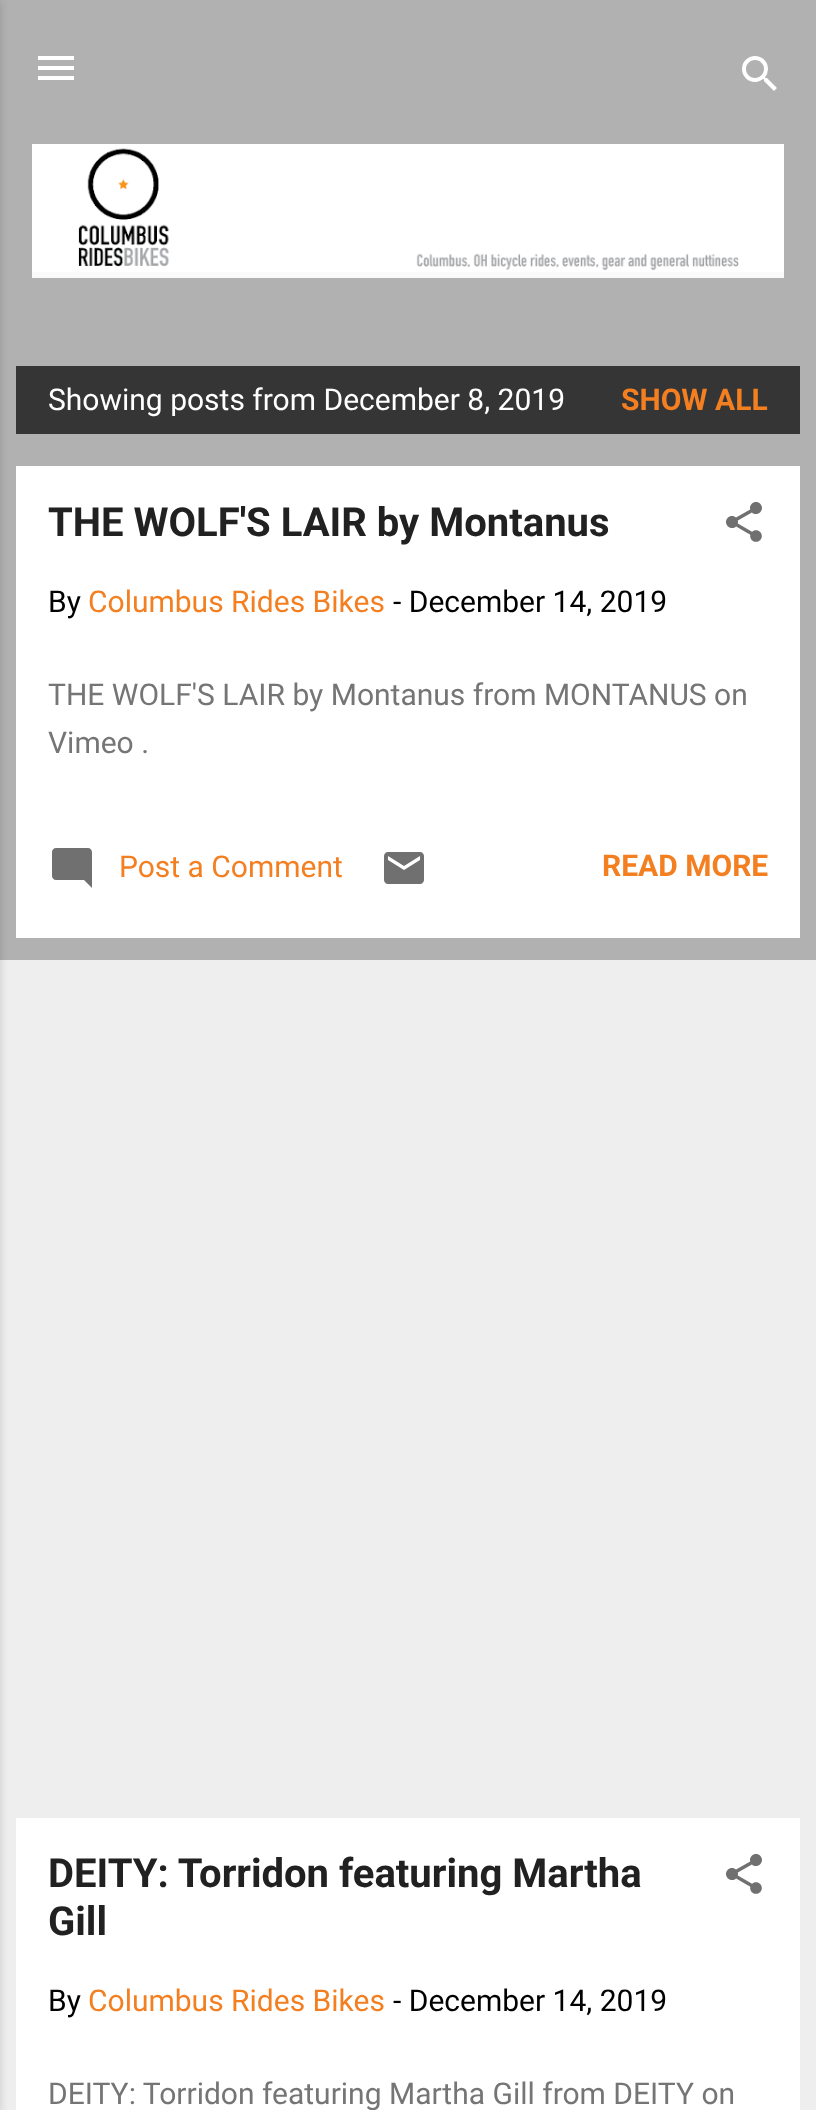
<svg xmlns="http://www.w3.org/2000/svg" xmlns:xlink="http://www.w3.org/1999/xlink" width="816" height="2110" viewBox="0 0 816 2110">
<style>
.cls-1{font:30px Roboto;fill:#ffffff}
.cls-2{font:bold 30px Roboto;fill:#f37f21}
.cls-3{font:bold 40px Roboto;fill:#212121}
.cls-4{font:30px Roboto;fill:#000000}
.cls-5{font:30px Roboto;fill:#f37f21}
.cls-6{font:30px Roboto;fill:#757575}
</style>
<rect width="100%" height="100%" fill="#eeeeee"/>
<rect fill="#b1b1b1" x="0" y="0" width="816" height="960"/>
<rect fill="#000000" fill-opacity="0.1" filter="blur(3px)" x="-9" y="2" width="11" height="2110"/>
<image xlink:href="image0.png" x="38" y="56" width="36" height="24"/>
<image xlink:href="image1.png" x="742" y="56" width="35" height="35"/>
<image xlink:href="image2.png" x="32" y="144" width="752" height="134"/>
<rect fill="#353535" x="16" y="366" width="784" height="68"/>
<rect fill="#ffffff" x="16" y="466" width="784" height="472"/>
<image xlink:href="image3.png" x="726" y="502" width="36" height="40"/>
<image xlink:href="image4.png" x="52" y="848" width="40" height="40"/>
<image xlink:href="image5.png" x="384" y="852" width="40" height="32"/>
<rect fill="#ffffff" x="16" y="1818" width="784" height="292"/>
<image xlink:href="image6.png" x="726" y="1854" width="36" height="40"/>
<text class="cls-1" x="48" y="410">Showing posts from December 8, 2019</text>
<text class="cls-2" x="621" y="410">SHOW ALL</text>
<text class="cls-3" x="48" y="536">THE WOLF'S LAIR by Montanus</text>
<text class="cls-4" x="48" y="612">By</text>
<text class="cls-5" x="88" y="612">Columbus Rides Bikes</text>
<text class="cls-4" x="393" y="612">- December 14, 2019</text>
<text class="cls-6"><tspan x="48" y="705">THE WOLF'S LAIR by Montanus from MONTANUS on</tspan><tspan x="48" y="753">Vimeo .</tspan></text>
<text class="cls-5" x="119" y="877">Post a Comment</text>
<text class="cls-2" x="602" y="876">READ MORE</text>
<text class="cls-3"><tspan x="48" y="1887">DEITY: Torridon featuring Martha</tspan><tspan x="48" y="1935">Gill</tspan></text>
<text class="cls-4" x="48" y="2011">By</text>
<text class="cls-5" x="88" y="2011">Columbus Rides Bikes</text>
<text class="cls-4" x="393" y="2011">- December 14, 2019</text>
<text class="cls-6" x="48" y="2104">DEITY: Torridon featuring Martha Gill from DEITY on</text>
</svg>
